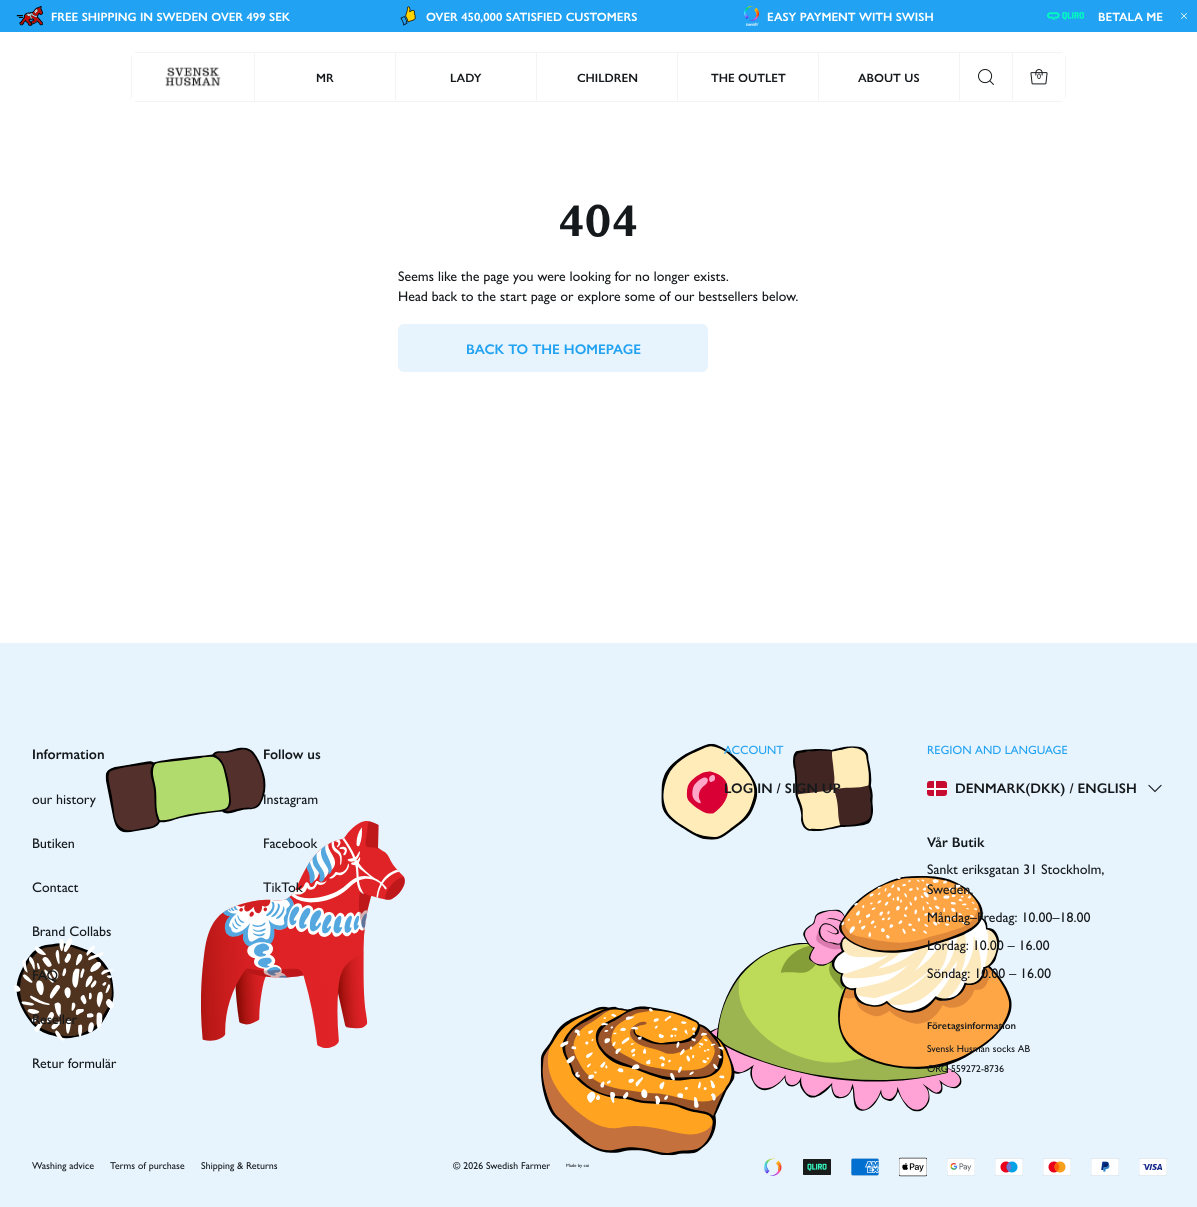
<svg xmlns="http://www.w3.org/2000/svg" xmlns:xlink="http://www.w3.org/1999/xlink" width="1197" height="1207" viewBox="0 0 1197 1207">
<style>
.cls-1{font:600 12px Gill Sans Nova;fill:#ffffff}
.cls-2{font:600 12px Gill Sans Nova;fill:#15191c}
.cls-3{font:bold 48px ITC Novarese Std;fill:#15191c}
.cls-4{font:600 14px Gill Sans Nova;fill:#21a2f2}
.cls-5{font:600 14px Gill Sans Nova;fill:#15191c}
.cls-6{font:600 10px Gill Sans Nova;fill:#15191c}
</style>
<rect width="100%" height="100%" fill="#ffffff"/>
<rect fill="#21a2f2" x="0" y="0" width="1197" height="32"/>
<image xlink:href="image0.png" x="16" y="6" width="27" height="20"/>
<image xlink:href="image1.png" x="400" y="6" width="16" height="20"/>
<image xlink:href="image2.png" x="744" y="6" width="15" height="20"/>
<image xlink:href="image3.png" x="1046" y="12" width="38" height="8"/>
<image xlink:href="image4.png" x="1181" y="13" width="6" height="6"/>
<rect fill="none" stroke="#f4f4f4" x="131.5" y="52.5" width="934" height="49" rx="5.5"/>
<rect fill="#ffffff" x="132" y="53" width="4" height="48"/>
<rect fill="#f4f4f4" x="254" y="53" width="1" height="48"/>
<image xlink:href="image5.png" x="165" y="67" width="56" height="20"/>
<rect fill="#f4f4f4" x="395" y="53" width="1" height="48"/>
<rect fill="#f4f4f4" x="536" y="53" width="1" height="48"/>
<rect fill="#f4f4f4" x="677" y="53" width="1" height="48"/>
<rect fill="#f4f4f4" x="818" y="53" width="1" height="48"/>
<rect fill="#f4f4f4" x="959" y="53" width="1" height="48"/>
<rect fill="#f4f4f4" x="1012" y="53" width="1" height="48"/>
<image xlink:href="image6.png" x="978" y="69" width="16" height="16"/>
<rect fill="#ffffff" x="1061" y="53" width="4" height="48"/>
<image xlink:href="image7.png" x="1030" y="69" width="18" height="16"/>
<image xlink:href="image8.png" x="1037" y="73" width="4" height="6"/>
<image xlink:href="image9.png" x="398" y="271" width="331" height="14"/>
<image xlink:href="image10.png" x="399" y="291" width="399" height="14"/>
<rect fill="#e7f4fd" x="398" y="324" width="310" height="48" rx="6"/>
<rect fill="#e7f4fd" x="0" y="643" width="1197" height="564"/>
<image xlink:href="image11.png" x="14" y="743" width="998" height="413"/>
<image xlink:href="image12.png" x="32" y="794" width="64" height="14"/>
<image xlink:href="image13.png" x="33" y="838" width="41" height="11"/>
<image xlink:href="image14.png" x="32" y="882" width="47" height="11"/>
<image xlink:href="image15.png" x="33" y="926" width="78" height="11"/>
<image xlink:href="image16.png" x="33" y="970" width="25" height="12"/>
<image xlink:href="image17.png" x="33" y="1014" width="44" height="11"/>
<image xlink:href="image18.png" x="33" y="1058" width="84" height="11"/>
<image xlink:href="image19.png" x="264" y="794" width="54" height="14"/>
<image xlink:href="image20.png" x="264" y="838" width="54" height="11"/>
<image xlink:href="image21.png" x="263" y="882" width="40" height="11"/>
<image xlink:href="image22.png" x="724" y="745" width="60" height="10"/>
<image xlink:href="image23.png" x="927" y="745" width="141" height="10"/>
<rect fill="#c60c30" x="927" y="781" width="20" height="15" rx="3"/>
<rect fill="#ffffff" x="934" y="781" width="2" height="15"/>
<rect fill="#ffffff" x="927" y="788" width="20" height="2"/>
<image xlink:href="image24.png" x="1148" y="784" width="14" height="9"/>
<image xlink:href="image25.png" x="927" y="864" width="177" height="14"/>
<image xlink:href="image26.png" x="927" y="884" width="46" height="11"/>
<image xlink:href="image27.png" x="928" y="912" width="163" height="14"/>
<image xlink:href="image28.png" x="928" y="940" width="122" height="14"/>
<image xlink:href="image29.png" x="927" y="968" width="124" height="14"/>
<image xlink:href="image30.png" x="927" y="1045" width="103" height="8"/>
<image xlink:href="image31.png" x="927" y="1065" width="77" height="8"/>
<image xlink:href="image32.png" x="32" y="1162" width="62" height="10"/>
<image xlink:href="image33.png" x="110" y="1162" width="75" height="10"/>
<image xlink:href="image34.png" x="201" y="1162" width="77" height="10"/>
<image xlink:href="image35.png" x="453" y="1162" width="97" height="8"/>
<image xlink:href="image36.png" x="566" y="1163" width="23" height="6"/>
<image xlink:href="image37.png" x="764" y="1158" width="18" height="18"/>
<image xlink:href="image38.png" x="803" y="1159" width="28" height="16"/>
<image xlink:href="image39.png" x="851" y="1158" width="28" height="18"/>
<image xlink:href="image40.png" x="899" y="1157" width="28" height="20"/>
<image xlink:href="image41.png" x="947" y="1158" width="28" height="18"/>
<image xlink:href="image42.png" x="995" y="1158" width="28" height="18"/>
<image xlink:href="image43.png" x="1043" y="1158" width="28" height="18"/>
<image xlink:href="image44.png" x="1091" y="1158" width="28" height="18"/>
<image xlink:href="image45.png" x="1139" y="1158" width="28" height="18"/>
<text class="cls-1" x="51" y="21">FREE SHIPPING IN SWEDEN OVER 499 SEK</text>
<text class="cls-1" x="426" y="21">OVER 450,000 SATISFIED CUSTOMERS</text>
<text class="cls-1" x="767" y="21">EASY PAYMENT WITH SWISH</text>
<text class="cls-1" x="1098" y="21">BETALA ME</text>
<text class="cls-2" x="316" y="82">MR</text>
<text class="cls-2" x="450" y="82">LADY</text>
<text class="cls-2" x="577" y="82">CHILDREN</text>
<text class="cls-2" x="711" y="82">THE OUTLET</text>
<text class="cls-2" x="858" y="82">ABOUT US</text>
<text class="cls-3" x="558" y="236">404</text>
<text class="cls-4" x="466" y="354">BACK TO THE HOMEPAGE</text>
<text class="cls-5" x="32" y="759">Information</text>
<text class="cls-5" x="263" y="759">Follow us</text>
<text class="cls-5" x="724" y="793">LOG IN / SIGN UP</text>
<text class="cls-5" x="955" y="793">DENMARK(DKK) / ENGLISH</text>
<text class="cls-5" x="927" y="847">Vår Butik</text>
<text class="cls-6" x="927" y="1029">Företagsinformation</text>
</svg>
